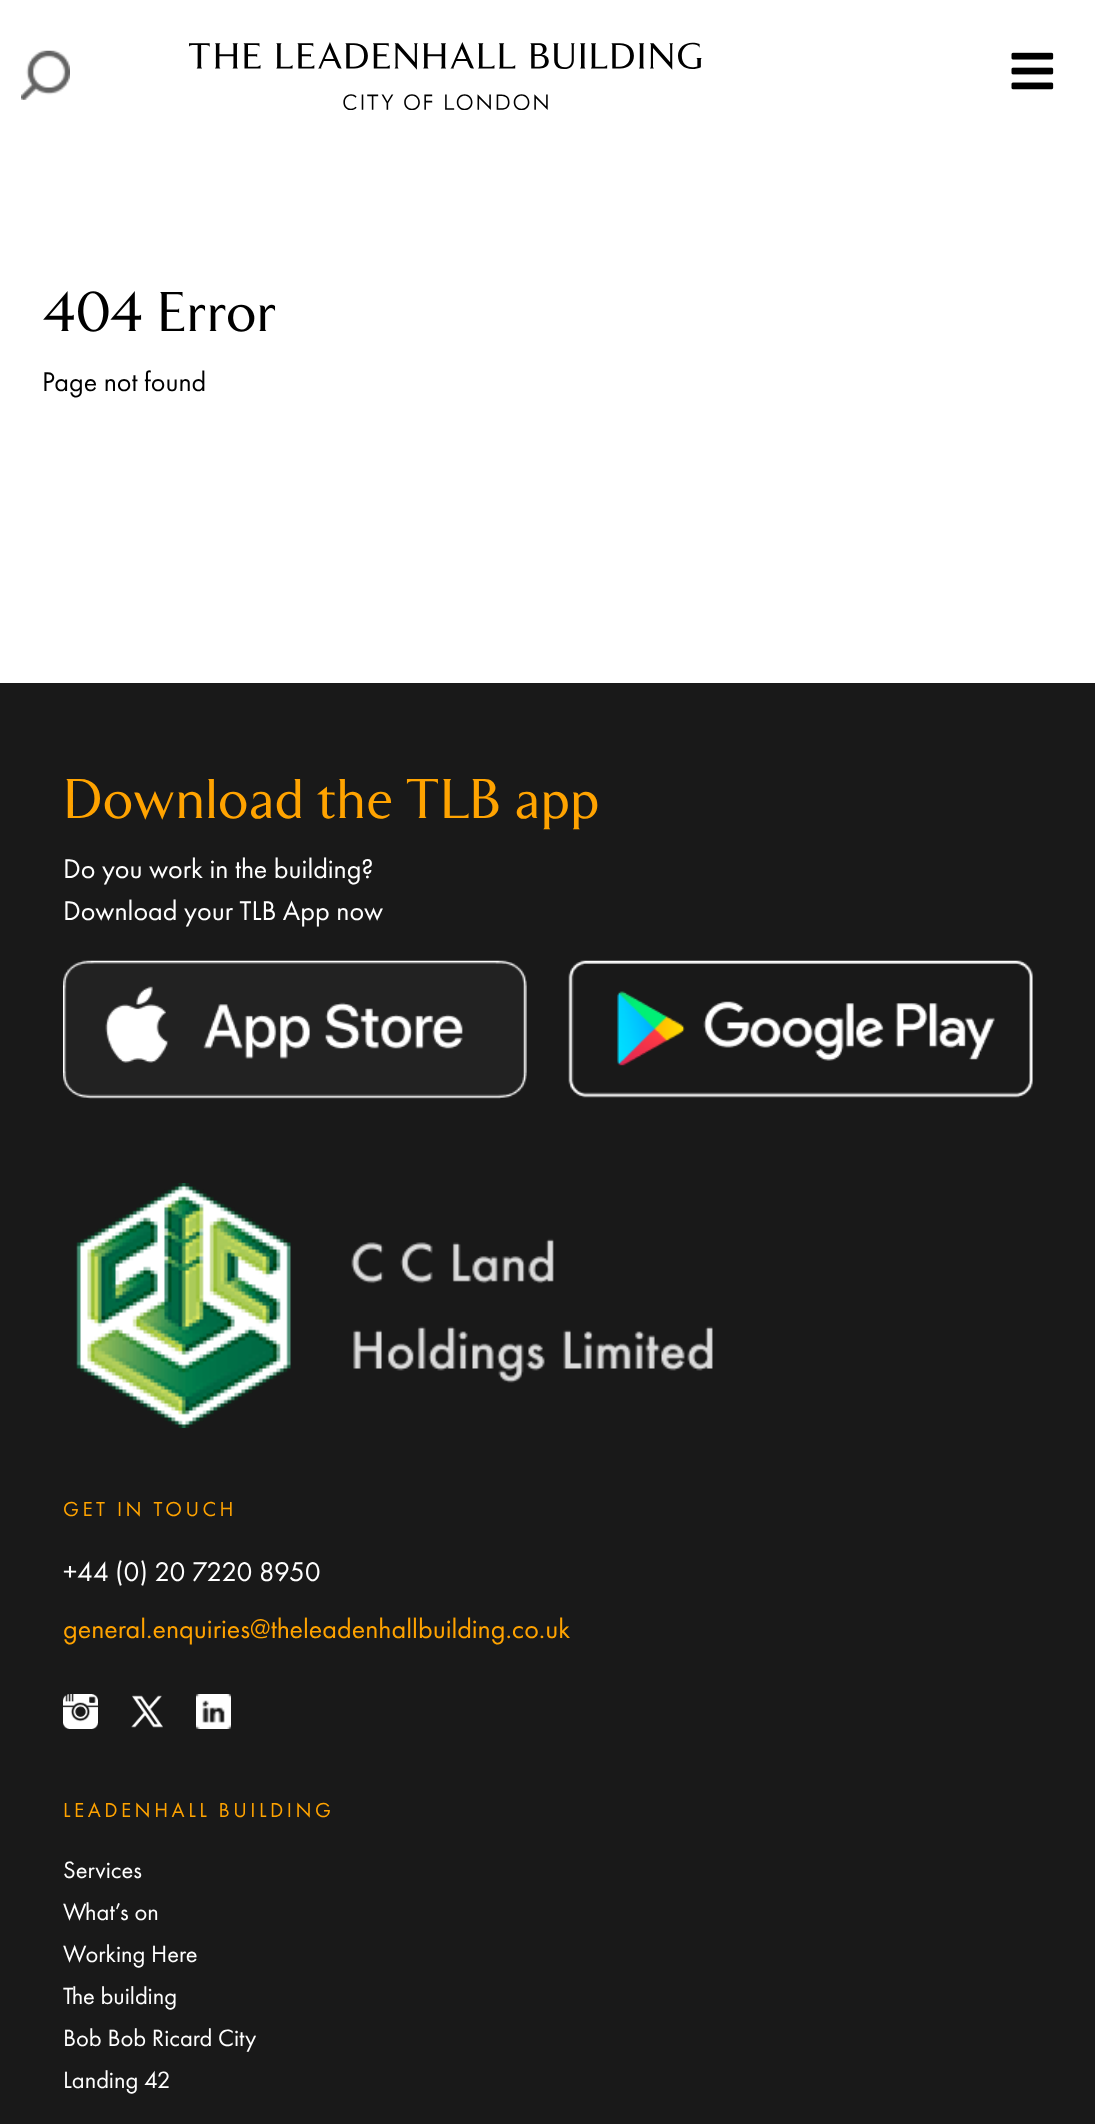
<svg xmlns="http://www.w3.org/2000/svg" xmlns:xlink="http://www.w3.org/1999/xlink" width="1095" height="2124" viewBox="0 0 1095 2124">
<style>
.cls-1{font:56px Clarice;fill:#000000}
.cls-2{font:28px Futura PT;fill:#000000}
.cls-3{font:56px Clarice;fill:#ffa300}
.cls-4{font:28px Futura PT;fill:#ffffff}
.cls-5{font:21px Futura PT;letter-spacing:3.5px;fill:#ffa300}
.cls-6{font:28px Futura PT;fill:#ffa300}
.cls-7{font:24.5px Futura PT;fill:#ffffff}
</style>
<rect width="100%" height="100%" fill="#ffffff"/>
<image xlink:href="image0.png" x="21" y="50" width="49" height="50"/>
<image xlink:href="image1.png" x="189" y="42" width="513" height="68"/>
<image xlink:href="image2.png" x="1011" y="52" width="43" height="38"/>
<rect fill="#191919" x="0" y="683" width="1095" height="1441"/>
<image xlink:href="image3.png" x="63" y="960" width="464" height="139"/>
<image xlink:href="image4.png" x="568" y="960" width="465" height="138"/>
<image xlink:href="image5.png" x="76" y="1183" width="637" height="245"/>
<image xlink:href="image6.png" x="63" y="1694" width="35" height="35"/>
<image xlink:href="image7.png" x="131" y="1695" width="32" height="33"/>
<image xlink:href="image8.png" x="196" y="1694" width="35" height="35"/>
<text class="cls-1" x="42" y="331">404 Error</text>
<text class="cls-2" x="42" y="391">Page not found</text>
<text class="cls-3" x="63" y="818">Download the TLB app</text>
<text class="cls-4"><tspan x="63" y="878">Do you work in the building?</tspan><tspan x="63" y="920">Download your TLB App now</tspan></text>
<text class="cls-5" x="63" y="1516">GET IN TOUCH</text>
<text class="cls-4" x="63" y="1581">+44 (0) 20 7220 8950</text>
<text class="cls-6" x="63" y="1638">general.enquiries@theleadenhallbuilding.co.uk</text>
<text class="cls-5" x="63" y="1817">LEADENHALL BUILDING</text>
<text class="cls-7"><tspan x="63" y="1878">Services</tspan><tspan x="63" y="1920">What’s on</tspan><tspan x="63" y="1962">Working Here</tspan><tspan x="63" y="2004">The building</tspan><tspan x="63" y="2046">Bob Bob Ricard City</tspan><tspan x="63" y="2088">Landing 42</tspan></text>
</svg>
